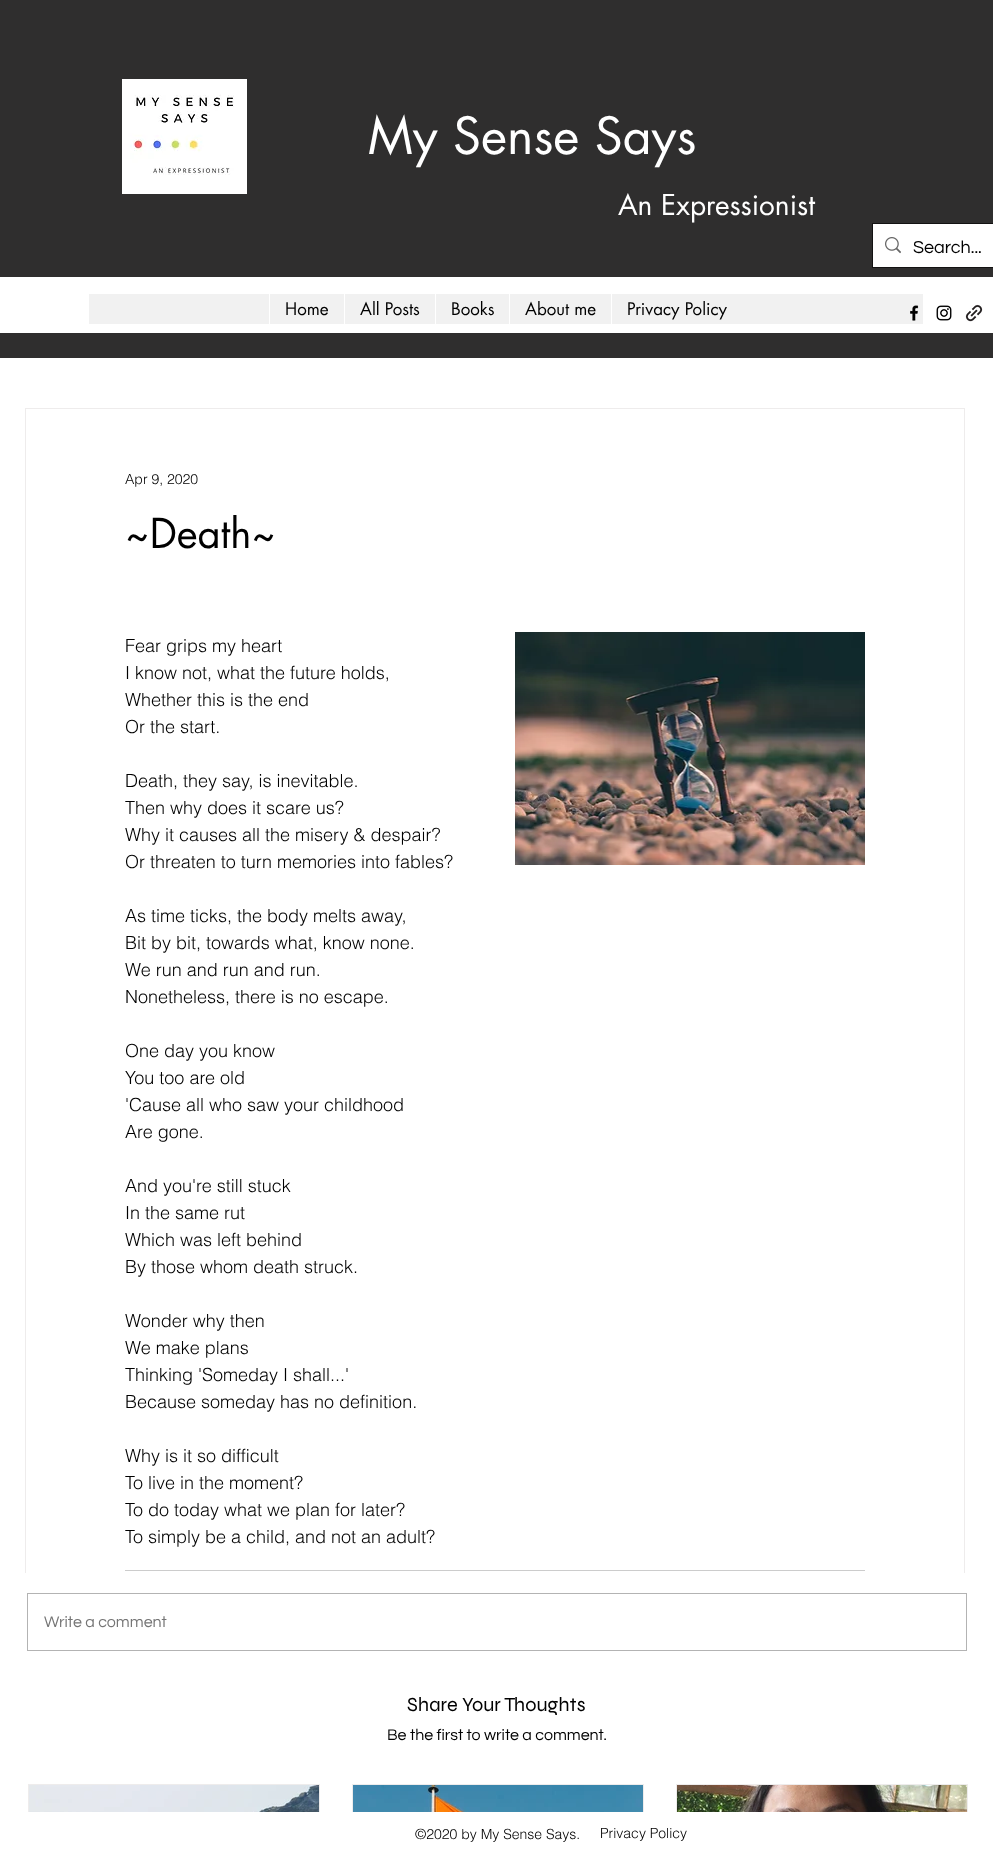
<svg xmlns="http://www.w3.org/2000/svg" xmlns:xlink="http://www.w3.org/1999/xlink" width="993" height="1860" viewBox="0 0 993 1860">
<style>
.cls-1{font:50px futura;fill:#ffffff}
.cls-2{font:28px futura;fill:#ffffff}
.cls-3{font:18px Questrial;fill:#000000}
.cls-4{font:17px futura;fill:#000000}
.cls-5{font:300 14px helvetica;fill:#000000}
.cls-6{font:40px futura;fill:#000000}
.cls-7{font:300 18px helvetica;fill:#000000}
.cls-8{font:16px Questrial;fill:#757575}
.cls-9{font:20px Syne;fill:#000000}
.cls-10{font:16px Questrial;fill:#000000}
</style>
<rect width="100%" height="100%" fill="#ffffff"/>
<rect fill="#2f2e2e" x="0" y="0" width="993" height="358"/>
<image xlink:href="image0.png" x="122" y="79" width="125" height="115"/>
<rect fill="none" stroke="#131212" x="872.5" y="223.5" width="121" height="44"/>
<rect fill="#ffffff" x="873" y="224" width="120" height="43"/>
<image xlink:href="image1.png" x="885" y="237" width="16" height="17"/>
<rect fill="#ffffff" x="0" y="277" width="993" height="56"/>
<rect fill="#f1f1f1" x="89" y="294" width="834" height="30"/>
<rect fill="#ffffff" x="269" y="294" width="1" height="30"/>
<rect fill="#ffffff" x="344" y="294" width="1" height="30"/>
<rect fill="#ffffff" x="435" y="294" width="1" height="30"/>
<rect fill="#ffffff" x="509" y="294" width="1" height="30"/>
<rect fill="#ffffff" x="611" y="294" width="1" height="30"/>
<image xlink:href="image2.png" x="910" y="305" width="9" height="16"/>
<image xlink:href="image3.png" x="936" y="305" width="16" height="16"/>
<image xlink:href="image4.png" x="965" y="304" width="18" height="18"/>
<rect fill="none" stroke="#eeecec" x="25.5" y="408.5" width="939" height="1307"/>
<image xlink:href="image5.png" x="515" y="632" width="350" height="233"/>
<rect fill="#cccccc" x="125" y="1570" width="740" height="1"/>
<rect fill="#ffffff" x="25" y="1573" width="940" height="143"/>
<rect fill="none" stroke="#b3b3b3" x="27.5" y="1593.5" width="939" height="57"/>
<rect fill="none" stroke="#eeecec" x="28.5" y="1784.5" width="291" height="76"/>
<image xlink:href="image6.png" x="29" y="1785" width="290" height="27"/>
<rect fill="none" stroke="#eeecec" x="352.5" y="1784.5" width="291" height="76"/>
<image xlink:href="image7.png" x="353" y="1785" width="290" height="27"/>
<rect fill="none" stroke="#eeecec" x="676.5" y="1784.5" width="291" height="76"/>
<image xlink:href="image8.png" x="677" y="1785" width="290" height="27"/>
<rect fill="#ffffff" x="28" y="1812" width="940" height="48"/>
<text class="cls-1" x="368" y="154">My Sense Says</text>
<text class="cls-2" x="618" y="215">An Expressionist</text>
<text class="cls-3" x="913" y="253">Search...</text>
<text class="cls-4" x="285" y="315">Home</text>
<text class="cls-4" x="360" y="315">All Posts</text>
<text class="cls-4" x="451" y="315">Books</text>
<text class="cls-4" x="525" y="315">About me</text>
<text class="cls-4" x="627" y="315">Privacy Policy</text>
<text class="cls-5" x="125" y="484">Apr 9, 2020</text>
<text class="cls-6" x="125" y="548">~Death~</text>
<text class="cls-7"><tspan x="125" y="652">Fear grips my heart</tspan><tspan x="125" y="679">I know not, what the future holds,</tspan><tspan x="125" y="706">Whether this is the end</tspan><tspan x="125" y="733">Or the start.</tspan></text>
<text class="cls-7"><tspan x="125" y="787">Death, they say, is inevitable.</tspan><tspan x="125" y="814">Then why does it scare us?</tspan><tspan x="125" y="841">Why it causes all the misery &amp; despair?</tspan><tspan x="125" y="868">Or threaten to turn memories into fables?</tspan></text>
<text class="cls-7"><tspan x="125" y="922">As time ticks, the body melts away,</tspan><tspan x="125" y="949">Bit by bit, towards what, know none.</tspan><tspan x="125" y="976">We run and run and run.</tspan><tspan x="125" y="1003">Nonetheless, there is no escape.</tspan></text>
<text class="cls-7"><tspan x="125" y="1057">One day you know</tspan><tspan x="125" y="1084">You too are old</tspan><tspan x="125" y="1111">'Cause all who saw your childhood</tspan><tspan x="125" y="1138">Are gone.</tspan></text>
<text class="cls-7"><tspan x="125" y="1192">And you're still stuck</tspan><tspan x="125" y="1219">In the same rut</tspan><tspan x="125" y="1246">Which was left behind</tspan><tspan x="125" y="1273">By those whom death struck.</tspan></text>
<text class="cls-7"><tspan x="125" y="1327">Wonder why then</tspan><tspan x="125" y="1354">We make plans</tspan><tspan x="125" y="1381">Thinking 'Someday I shall...'</tspan><tspan x="125" y="1408">Because someday has no definition.</tspan></text>
<text class="cls-7"><tspan x="125" y="1462">Why is it so difficult</tspan><tspan x="125" y="1489">To live in the moment?</tspan><tspan x="125" y="1516">To do today what we plan for later?</tspan><tspan x="125" y="1543">To simply be a child, and not an adult?</tspan></text>
<text class="cls-8" x="44" y="1627">Write a comment</text>
<text class="cls-9" x="407" y="1711">Share Your Thoughts</text>
<text class="cls-10" x="387" y="1740">Be the first to write a comment.</text>
<text class="cls-5" x="415" y="1839">©2020 by My Sense Says.</text>
<text class="cls-5" x="600" y="1838">Privacy Policy</text>
</svg>
